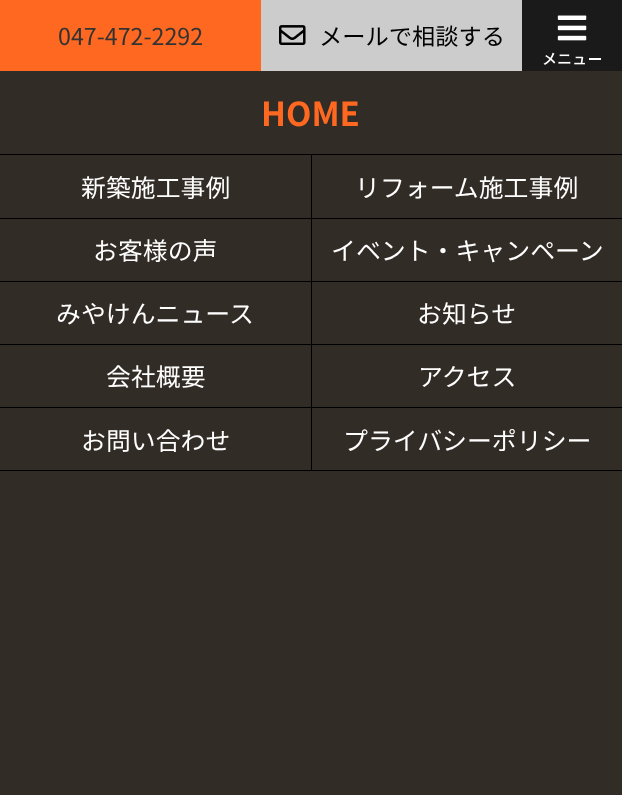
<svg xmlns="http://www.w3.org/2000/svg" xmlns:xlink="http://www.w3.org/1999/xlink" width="622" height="795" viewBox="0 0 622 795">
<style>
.cls-1{font:23.25px Noto Sans JP;fill:#333333}
.cls-2{font:23.25px Noto Sans JP;fill:#000000}
.cls-3{font:bold 33px Noto Sans JP;fill:#ff6820}
.cls-4{font:24.9px Noto Sans JP;fill:#ffffff}
</style>
<rect width="100%" height="100%" fill="#ff6820"/>
<rect fill="#cccccc" x="261" y="0" width="261" height="71"/>
<image xlink:href="image0.png" x="279" y="25" width="27" height="20"/>
<image xlink:href="image1.png" x="522" y="0" width="100" height="71"/>
<rect fill="#322c26" x="0" y="71" width="622" height="724"/>
<rect fill="#000000" x="311" y="154" width="311" height="1"/>
<rect fill="#000000" x="311" y="218" width="311" height="1"/>
<rect fill="#000000" x="311" y="281" width="311" height="1"/>
<rect fill="#000000" x="311" y="344" width="311" height="1"/>
<rect fill="#000000" x="311" y="407" width="311" height="1"/>
<rect fill="#000000" x="311" y="470" width="311" height="1"/>
<rect fill="#000000" x="311" y="407" width="1" height="64"/>
<rect fill="#000000" x="0" y="407" width="312" height="1"/>
<rect fill="#000000" x="311" y="344" width="1" height="64"/>
<rect fill="#000000" x="0" y="344" width="312" height="1"/>
<rect fill="#000000" x="311" y="281" width="1" height="64"/>
<rect fill="#000000" x="0" y="281" width="312" height="1"/>
<rect fill="#000000" x="311" y="218" width="1" height="64"/>
<rect fill="#000000" x="0" y="218" width="312" height="1"/>
<rect fill="#000000" x="311" y="154" width="1" height="65"/>
<rect fill="#000000" x="0" y="154" width="312" height="1"/>
<rect fill="#000000" x="0" y="470" width="312" height="1"/>
<text class="cls-1" x="58" y="45">047-472-2292</text>
<text class="cls-2" x="319" y="45">メールで相談する</text>
<text class="cls-3" x="261" y="126">HOME</text>
<text class="cls-4" x="81" y="197">新築施工事例</text>
<text class="cls-4" x="355" y="197">リフォーム施工事例</text>
<text class="cls-4" x="93" y="260">お客様の声</text>
<text class="cls-4" x="331" y="260">イベント・キャンペーン</text>
<text class="cls-4" x="56" y="323">みやけんニュース</text>
<text class="cls-4" x="417" y="323">お知らせ</text>
<text class="cls-4" x="106" y="386">会社概要</text>
<text class="cls-4" x="418" y="386">アクセス</text>
<text class="cls-4" x="81" y="450">お問い合わせ</text>
<text class="cls-4" x="343" y="450">プライバシーポリシー</text>
</svg>
